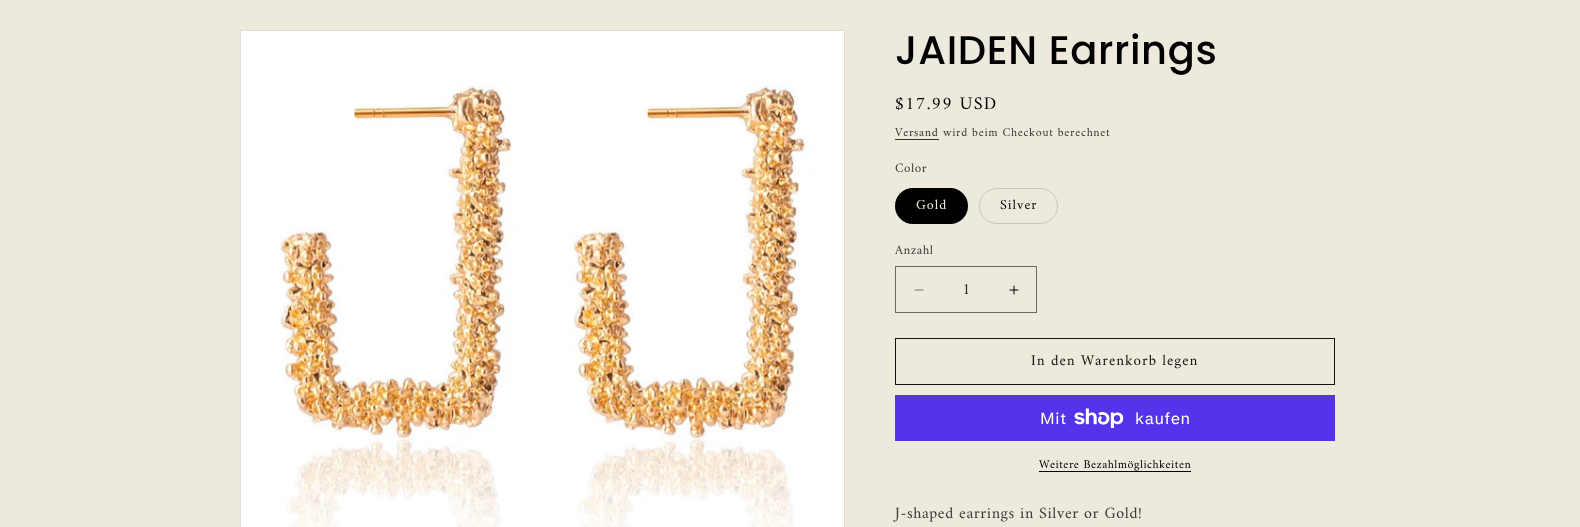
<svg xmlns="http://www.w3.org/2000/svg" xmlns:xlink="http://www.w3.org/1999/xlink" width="1580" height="527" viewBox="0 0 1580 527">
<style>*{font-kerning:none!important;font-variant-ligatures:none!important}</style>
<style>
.cls-1{font:500 40px Poppins;letter-spacing:0.6px;fill:#000000}
.cls-2{font:18px Amiri;letter-spacing:1.25px;fill:#000000}
.cls-3{font:12px Amiri;letter-spacing:0.7px;fill:#333230}
.cls-4{font:12px Amiri;letter-spacing:0.7px;fill:#3b3a37}
.cls-5{font:13px Amiri;letter-spacing:0.5px;fill:#3b3a37}
.cls-6{font:14px Amiri;letter-spacing:1px;fill:#ede9dd}
.cls-7{font:14px Amiri;letter-spacing:1px;fill:#000000}
.cls-8{font:16px Amiri;fill:#242321}
.cls-9{font:15px Amiri;letter-spacing:1px;fill:#121212}
.cls-10{font:16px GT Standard;letter-spacing:0.6px;fill:#ffffff}
.cls-11{font:12px Amiri;letter-spacing:0.5px;fill:#000000}
.cls-12{font:16px Amiri;letter-spacing:0.6px;fill:#3b3a37}
</style>
<rect width="100%" height="100%" fill="#ede9dd"/>
<rect fill="none" stroke="#e1ddd2" x="240.5" y="30.5" width="604" height="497"/>
<image xlink:href="image0.png" x="241" y="31" width="603" height="496"/>
<rect fill="#333230" x="895" y="139" width="44" height="1"/>
<rect fill="#000000" x="895" y="188" width="73" height="36" rx="18"/>
<rect fill="none" stroke="#000000" stroke-opacity="0.15" x="895.5" y="188.5" width="72" height="35" rx="17.5"/>
<rect fill="none" stroke="#c9c6bc" x="979.5" y="188.5" width="78" height="35" rx="17.5"/>
<image xlink:href="image1.png" x="914" y="289" width="10" height="2"/>
<image xlink:href="image2.png" x="1009" y="285" width="10" height="10"/>
<rect fill="none" stroke="#6b6963" x="895.5" y="266.5" width="141" height="46"/>
<rect fill="none" stroke="#121212" x="895.5" y="338.5" width="439" height="46"/>
<rect fill="#5433eb" x="895" y="395" width="440" height="46"/>
<image xlink:href="image3.png" x="1074" y="408" width="50" height="20"/>
<rect fill="#000000" x="1039" y="471" width="152" height="1"/>
<text class="cls-1" x="895" y="64">JAIDEN Earrings</text>
<text class="cls-2" x="895" y="109">$17.99 USD</text>
<text class="cls-3" x="895" y="136">Versand</text>
<text class="cls-4" x="943" y="136">wird beim Checkout berechnet</text>
<text class="cls-5" x="895" y="172">Color</text>
<text class="cls-6" x="916" y="209">Gold</text>
<text class="cls-7" x="1000" y="209">Silver</text>
<text class="cls-5" x="895" y="254">Anzahl</text>
<text class="cls-8" x="962" y="294">1</text>
<text class="cls-9" x="1031" y="365">In den Warenkorb legen</text>
<text class="cls-10" x="1040" y="424">Mit</text>
<text class="cls-10" x="1135" y="424">kaufen</text>
<text class="cls-11" x="1039" y="468">Weitere Bezahlmöglichkeiten</text>
<text class="cls-12" x="895" y="518">J-shaped earrings in Silver or Gold!</text>
</svg>
